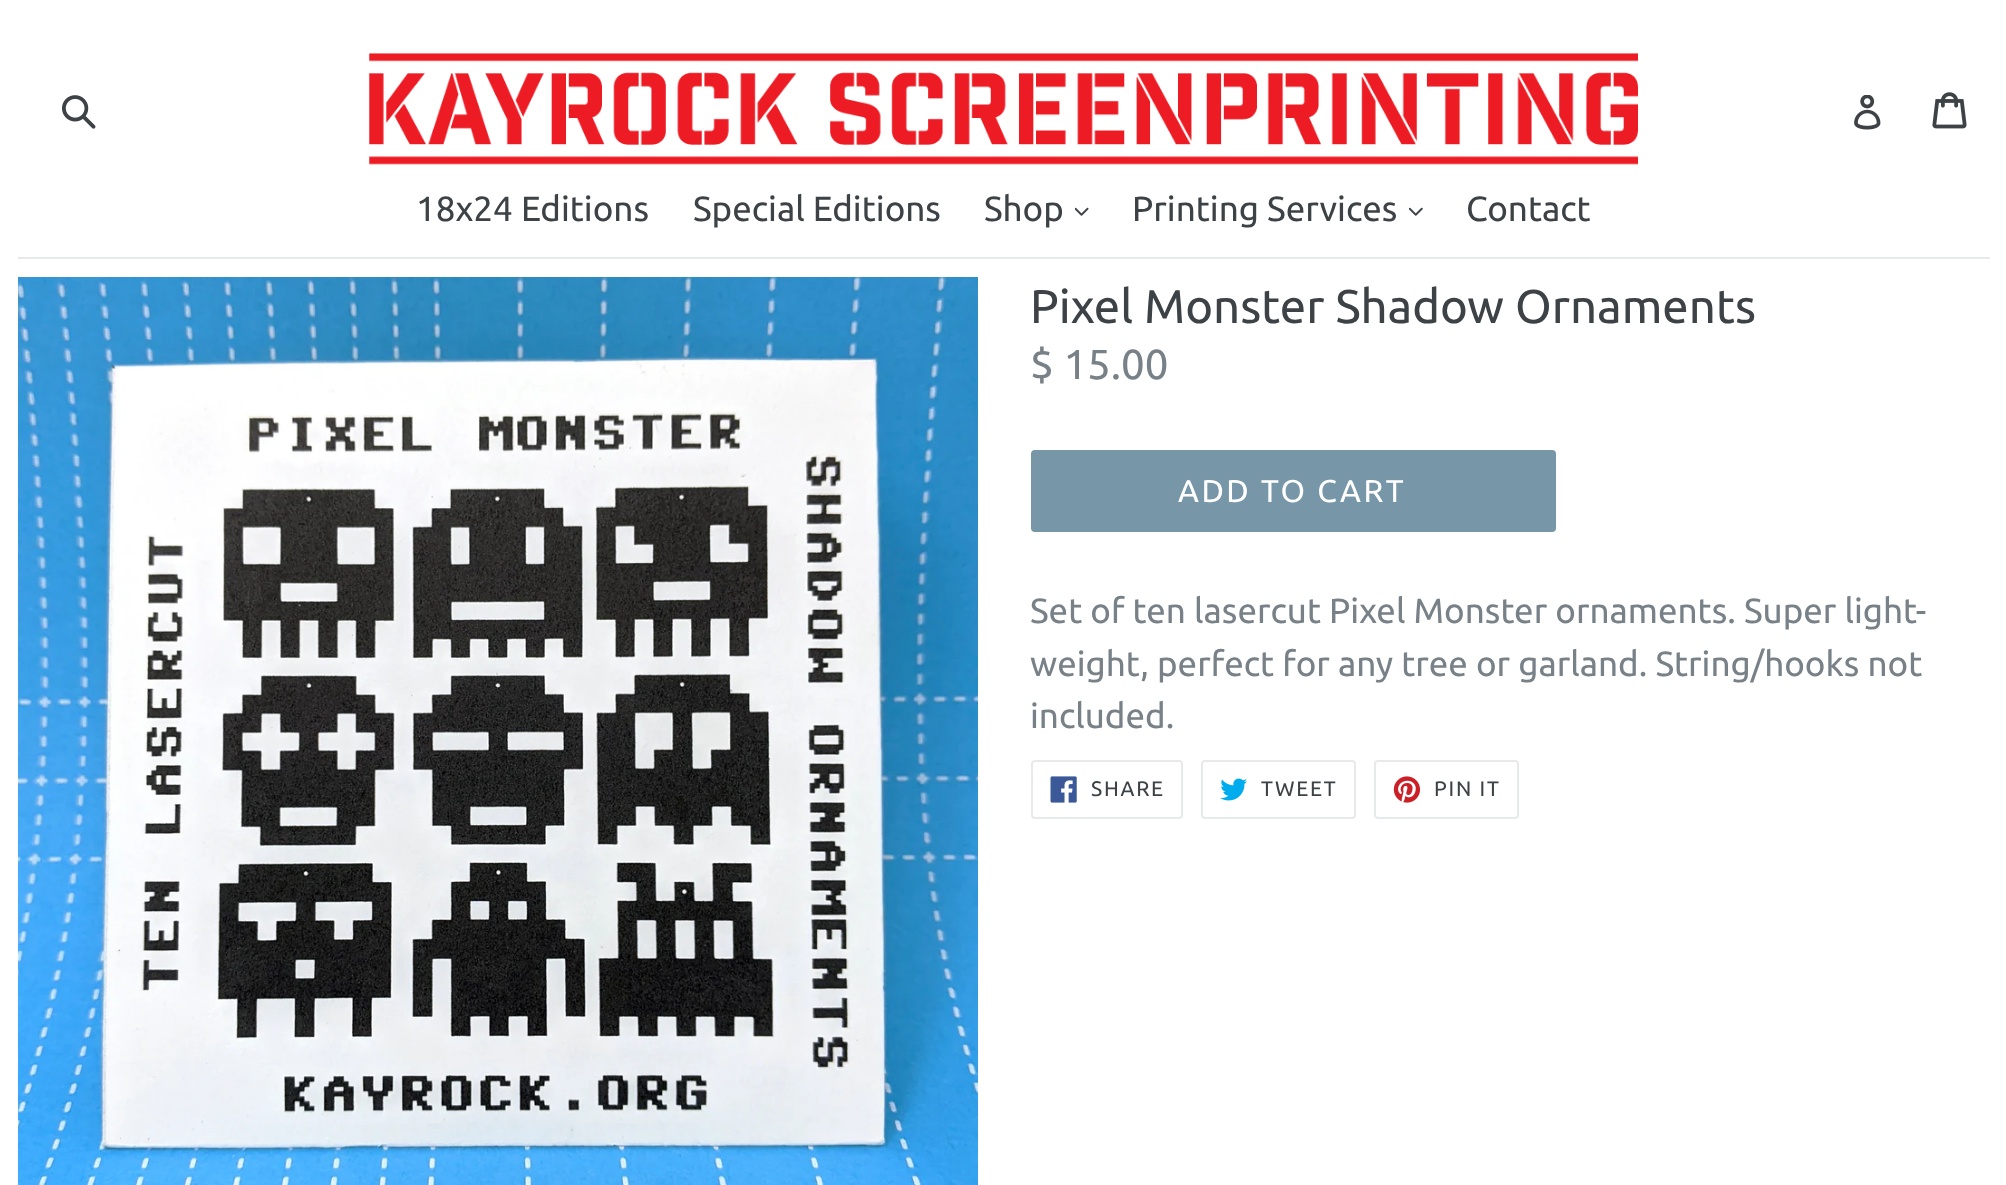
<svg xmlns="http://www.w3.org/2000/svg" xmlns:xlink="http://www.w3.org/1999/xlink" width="2006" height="1185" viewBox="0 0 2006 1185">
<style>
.cls-1{font:35px Ubuntu;fill:#3d4246}
.cls-2{font:47.25px Ubuntu;fill:#3d4246}
.cls-3{font:42px Ubuntu;fill:#788188}
.cls-4{font:31.5px Ubuntu;letter-spacing:2.5px;fill:#ffffff}
.cls-5{font:35px Ubuntu;fill:#788188}
.cls-6{font:21px Ubuntu;letter-spacing:1.75px;fill:#3d4246}
</style>
<rect width="100%" height="100%" fill="#ffffff"/>
<image xlink:href="image0.png" x="62" y="95" width="34" height="34"/>
<image xlink:href="image1.png" x="369" y="53" width="1269" height="112"/>
<image xlink:href="image2.png" x="1854" y="95" width="27" height="35"/>
<image xlink:href="image3.png" x="1932" y="92" width="35" height="37"/>
<rect fill="#e8e9eb" x="18" y="257" width="1972" height="2"/>
<image xlink:href="image4.png" x="1075" y="207" width="14" height="9"/>
<image xlink:href="image5.png" x="1409" y="207" width="14" height="9"/>
<image xlink:href="image6.png" x="18" y="277" width="960" height="908"/>
<rect fill="#7796a8" x="1031" y="450" width="525" height="82" rx="4"/>
<rect fill="none" stroke="#e8e9eb" stroke-width="2" x="1032" y="761" width="150" height="57" rx="3"/>
<image xlink:href="image7.png" x="1050" y="776" width="27" height="27"/>
<rect fill="none" stroke="#e8e9eb" stroke-width="2" x="1202" y="761" width="153" height="57" rx="3"/>
<image xlink:href="image8.png" x="1220" y="778" width="27" height="23"/>
<rect fill="none" stroke="#e8e9eb" stroke-width="2" x="1375" y="761" width="143" height="57" rx="3"/>
<image xlink:href="image9.png" x="1393" y="776" width="28" height="27"/>
<text class="cls-1" x="416" y="221">18x24 Editions</text>
<text class="cls-1" x="693" y="221">Special Editions</text>
<text class="cls-1" x="984" y="221">Shop</text>
<text class="cls-1" x="1132" y="221">Printing Services</text>
<text class="cls-1" x="1466" y="221">Contact</text>
<text class="cls-2" x="1030" y="323">Pixel Monster Shadow Ornaments</text>
<text class="cls-3" x="1030" y="379">$ 15.00</text>
<text class="cls-4" x="1178" y="502">ADD TO CART</text>
<text class="cls-5"><tspan x="1030" y="623">Set of ten lasercut Pixel Monster ornaments. Super light-</tspan><tspan x="1030" y="676">weight, perfect for any tree or garland. String/hooks not</tspan><tspan x="1030" y="728">included.</tspan></text>
<text class="cls-6" x="1091" y="796">SHARE</text>
<text class="cls-6" x="1261" y="796">TWEET</text>
<text class="cls-6" x="1434" y="796">PIN IT</text>
</svg>
